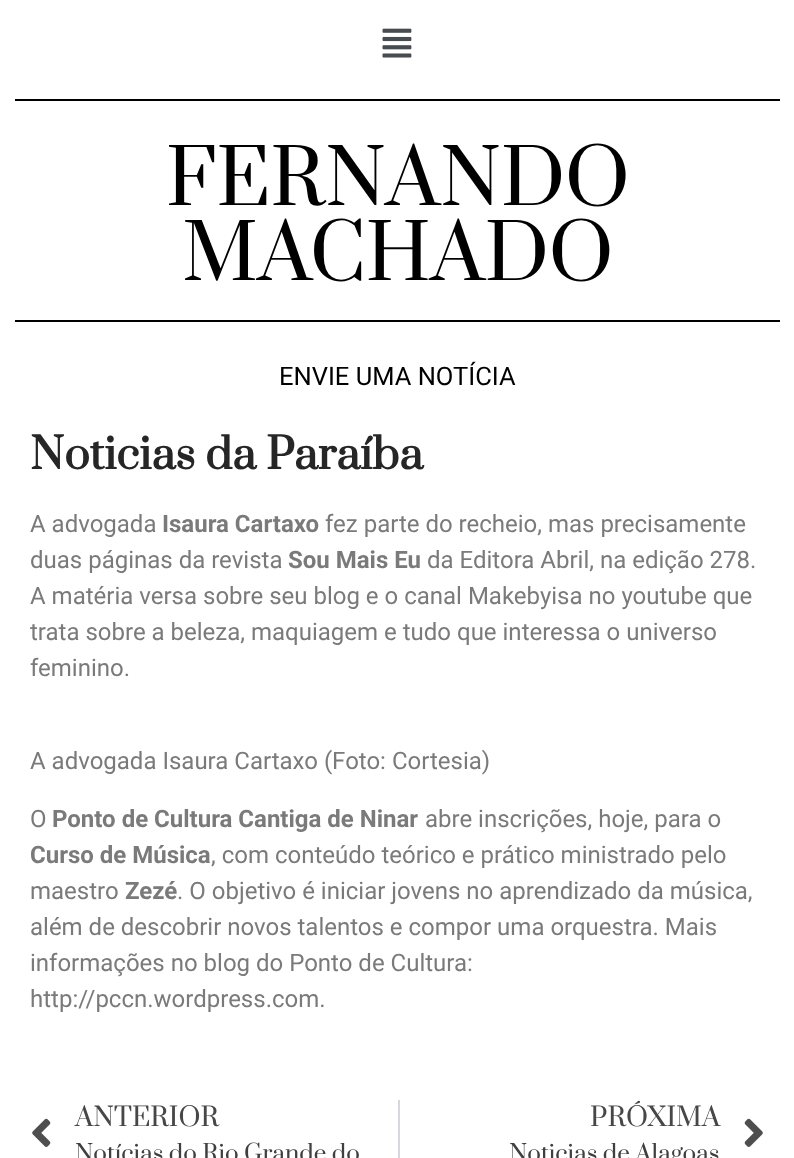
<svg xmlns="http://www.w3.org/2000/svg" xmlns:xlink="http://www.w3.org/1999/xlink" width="794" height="1158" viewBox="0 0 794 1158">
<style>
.cls-1{font:75px Prata;fill:#000000}
.cls-2{font:25.5px Roboto;fill:#000000}
.cls-3{font:bold 42px Prata;fill:#262626}
.cls-4{font:24px Roboto;fill:#7a7a7a}
.cls-5{font:bold 24px Roboto;fill:#7a7a7a}
.cls-6{font:25.5px Prata;fill:#474747}
.cls-7{font:22.5px Prata;fill:#3f3f3f}
</style>
<rect width="100%" height="100%" fill="#ffffff"/>
<image xlink:href="image0.png" x="382" y="28" width="30" height="30"/>
<rect fill="#000000" x="15" y="99" width="765" height="2"/>
<rect fill="#000000" x="15" y="320" width="765" height="2"/>
<image xlink:href="image1.png" x="32" y="1118" width="19" height="29"/>
<rect fill="#d5d8dc" x="398" y="1100" width="2" height="58"/>
<image xlink:href="image2.png" x="744" y="1118" width="19" height="29"/>
<text class="cls-1" x="166" y="205">FERNANDO</text>
<text class="cls-1" x="182" y="280">MACHADO</text>
<text class="cls-2" x="279" y="385">ENVIE UMA NOTÍCIA</text>
<text class="cls-3" x="30" y="469">Noticias da Paraíba</text>
<text class="cls-4" x="30" y="532">A advogada</text>
<text class="cls-5" x="162" y="532">Isaura Cartaxo</text>
<text class="cls-4" x="325" y="532">fez parte do recheio, mas precisamente</text>
<text class="cls-4" x="30" y="568">duas páginas da revista</text>
<text class="cls-5" x="288" y="568">Sou Mais Eu</text>
<text class="cls-4" x="427" y="568">da Editora Abril, na edição 278.</text>
<text class="cls-4"><tspan x="30" y="604">A matéria versa sobre seu blog e o canal Makebyisa no youtube que</tspan><tspan x="30" y="640">trata sobre a beleza, maquiagem e tudo que interessa o universo</tspan><tspan x="30" y="676">feminino.</tspan></text>
<text class="cls-4" x="30" y="769">A advogada Isaura Cartaxo (Foto: Cortesia)</text>
<text class="cls-4" x="30" y="827">O</text>
<text class="cls-5" x="52" y="827">Ponto de Cultura Cantiga de Ninar</text>
<text class="cls-4" x="425" y="827">abre inscrições, hoje, para o</text>
<text class="cls-5" x="30" y="863">Curso de Música</text>
<text class="cls-4" x="211" y="863">, com conteúdo teórico e prático ministrado pelo</text>
<text class="cls-4" x="30" y="899">maestro</text>
<text class="cls-5" x="125" y="899">Zezé</text>
<text class="cls-4" x="177" y="899">. O objetivo é iniciar jovens no aprendizado da música,</text>
<text class="cls-4"><tspan x="30" y="935">além de descobrir novos talentos e compor uma orquestra. Mais</tspan><tspan x="30" y="971">informações no blog do Ponto de Cultura:</tspan><tspan x="30" y="1007">http://pccn.wordpress.com.</tspan></text>
<text class="cls-6" x="75" y="1126">ANTERIOR</text>
<text class="cls-7" x="75" y="1161">Notícias do Rio Grande do</text>
<text class="cls-6" x="590" y="1126">PRÓXIMA</text>
<text class="cls-7" x="509" y="1161">Noticias de Alagoas</text>
</svg>
